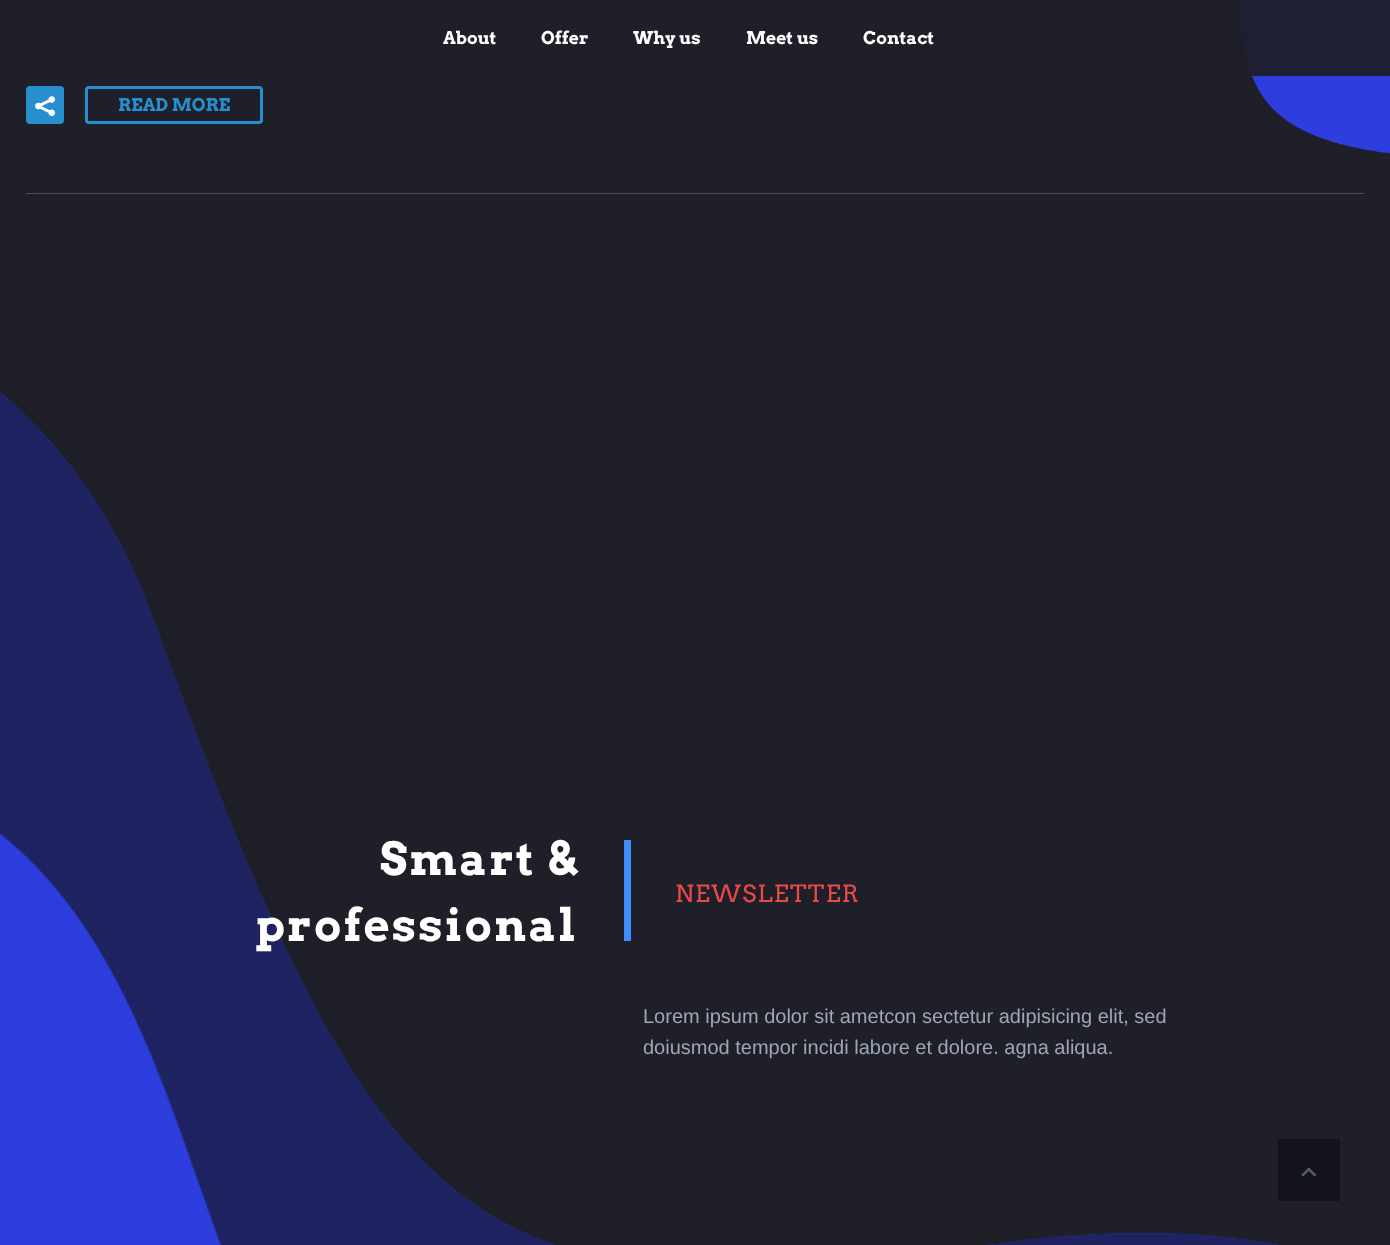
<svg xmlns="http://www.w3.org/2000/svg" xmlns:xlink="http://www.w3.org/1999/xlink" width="1390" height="1245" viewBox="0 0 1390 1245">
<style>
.cls-1{font:bold 17.5px Arvo;fill:#ffffff}
.cls-2{font:bold 17.5px Arvo;fill:#288fcf}
.cls-3{font:bold 45px Arvo;letter-spacing:2.25px;fill:#ffffff}
.cls-4{font:23.75px Arvo;letter-spacing:1.25px;fill:#e94a47}
.cls-5{font:20px Liberation Sans;fill:#99a9b5}
</style>
<rect width="100%" height="100%" fill="#1e1f28"/>
<image xlink:href="image0.png" x="1239" y="0" width="151" height="154"/>
<rect fill="#1e1f28" fill-opacity="0.95" x="1239" y="0" width="151" height="76"/>
<rect fill="#50514f" x="26" y="193" width="1338" height="1"/>
<rect fill="#288fcf" x="26" y="86" width="38" height="38" rx="4"/>
<image xlink:href="image1.png" x="35" y="96" width="20" height="21"/>
<rect fill="none" stroke="#288fcf" stroke-width="3" x="86.5" y="87.5" width="175" height="35" rx="2.5"/>
<image xlink:href="image2.png" x="0" y="391" width="1278" height="854"/>
<rect fill="#428dfc" x="624" y="840" width="7" height="101"/>
<rect fill="#12131c" x="1278" y="1139" width="62" height="62"/>
<image xlink:href="image3.png" x="1301" y="1167" width="16" height="10"/>
<text class="cls-1" x="443" y="44">About</text>
<text class="cls-1" x="541" y="44">Offer</text>
<text class="cls-1" x="633" y="44">Why us</text>
<text class="cls-1" x="746" y="44">Meet us</text>
<text class="cls-1" x="863" y="44">Contact</text>
<text class="cls-2" x="118" y="111">READ MORE</text>
<text class="cls-3" x="380" y="875">Smart &amp;</text>
<text class="cls-3" x="255" y="941">professional</text>
<text class="cls-4" x="675" y="902">NEWSLETTER</text>
<text class="cls-5"><tspan x="643" y="1023">Lorem ipsum dolor sit ametcon sectetur adipisicing elit, sed</tspan><tspan x="643" y="1054">doiusmod tempor incidi labore et dolore. agna aliqua.</tspan></text>
</svg>
